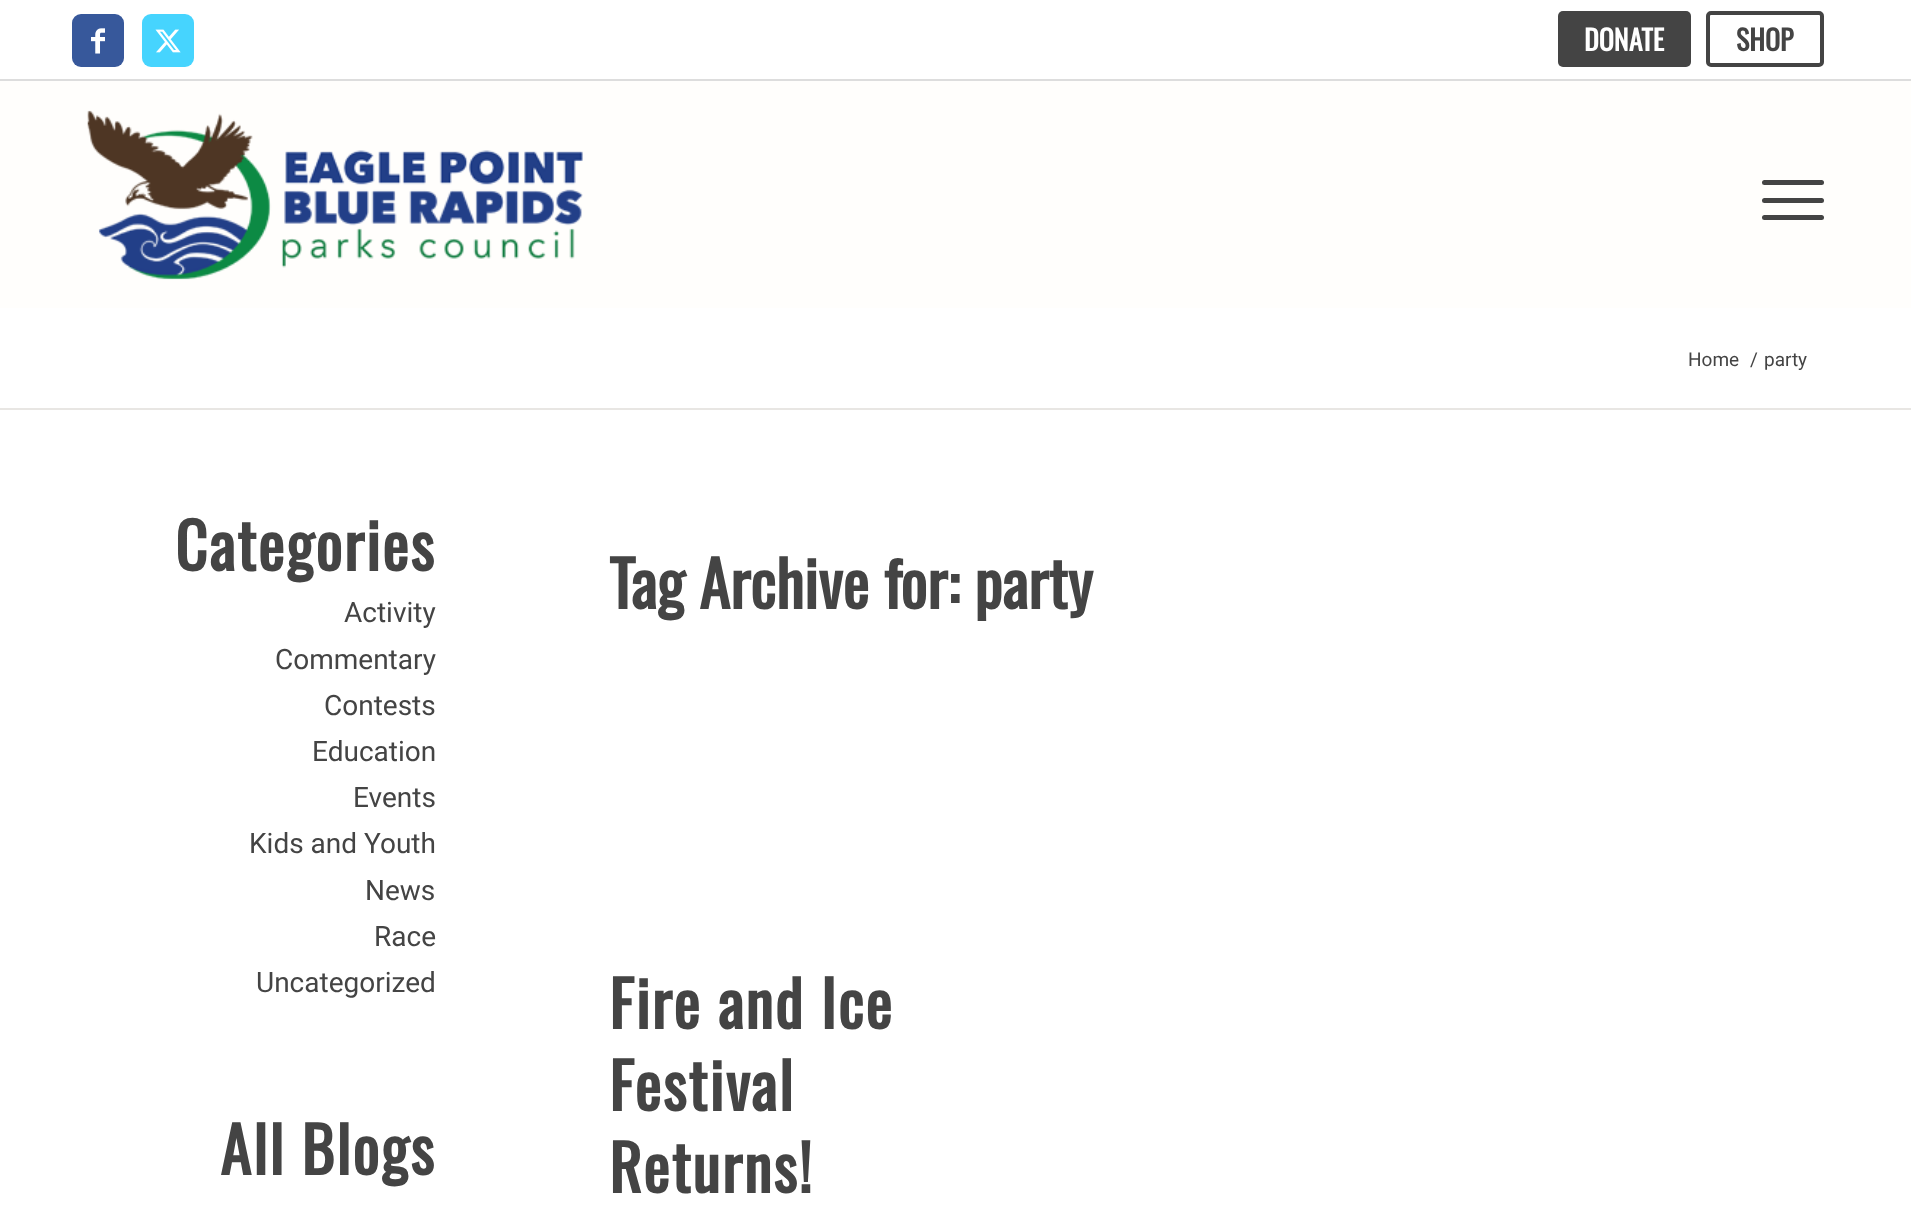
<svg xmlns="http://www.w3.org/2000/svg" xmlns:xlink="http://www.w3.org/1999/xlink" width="1911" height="1228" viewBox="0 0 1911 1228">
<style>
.cls-1{font:bold 28px Oswald;fill:#ffffff}
.cls-2{font:bold 28px Oswald;fill:#444444}
.cls-3{font:19px Roboto;fill:#444444}
.cls-4{font:bold 63px Oswald;letter-spacing:1.75px;fill:#444444}
.cls-5{font:28px Roboto;fill:#444444}
.cls-6{font:bold 63px Oswald;fill:#444444}
</style>
<rect width="100%" height="100%" fill="#ffffff"/>
<rect fill="#dddddd" x="0" y="79" width="1911" height="2"/>
<rect fill="#37589b" x="72" y="14" width="52" height="53" rx="9"/>
<image xlink:href="image0.png" x="91" y="28" width="14" height="26"/>
<rect fill="#46d4fe" x="142" y="14" width="52" height="53" rx="9"/>
<image xlink:href="image1.png" x="155" y="29" width="26" height="24"/>
<rect fill="#444444" x="1558" y="11" width="133" height="56" rx="5"/>
<rect fill="none" stroke="#444444" stroke-width="4" x="1708" y="13" width="114" height="52" rx="3"/>
<rect fill="#fffefc" x="0" y="81" width="1911" height="227"/>
<image xlink:href="image2.png" x="87" y="110" width="496" height="170"/>
<rect fill="#444444" x="1762" y="198" width="62" height="5" rx="2.5"/>
<rect fill="#444444" x="1762" y="180" width="62" height="5" rx="2.5"/>
<rect fill="#444444" x="1762" y="215" width="62" height="5" rx="2.5"/>
<rect fill="#e8e6e3" x="0" y="408" width="1911" height="2"/>
<text class="cls-1" x="1584" y="51">DONATE</text>
<text class="cls-2" x="1736" y="51">SHOP</text>
<text class="cls-3" x="1688" y="366">Home</text>
<text class="cls-3" x="1750" y="366">/</text>
<text class="cls-3" x="1764" y="366">party</text>
<text class="cls-4" x="175" y="571">Categories</text>
<text class="cls-5" x="344" y="622">Activity</text>
<text class="cls-5" x="275" y="669">Commentary</text>
<text class="cls-5" x="324" y="715">Contests</text>
<text class="cls-5" x="312" y="761">Education</text>
<text class="cls-5" x="353" y="807">Events</text>
<text class="cls-5" x="249" y="853">Kids and Youth</text>
<text class="cls-5" x="365" y="900">News</text>
<text class="cls-5" x="374" y="946">Race</text>
<text class="cls-5" x="256" y="992">Uncategorized</text>
<text class="cls-4" x="220" y="1175">All Blogs</text>
<text class="cls-6" x="609" y="609">Tag Archive for: party</text>
<text class="cls-4"><tspan x="609" y="1029">Fire and Ice</tspan><tspan x="609" y="1111">Festival</tspan><tspan x="609" y="1193">Returns!</tspan></text>
</svg>
